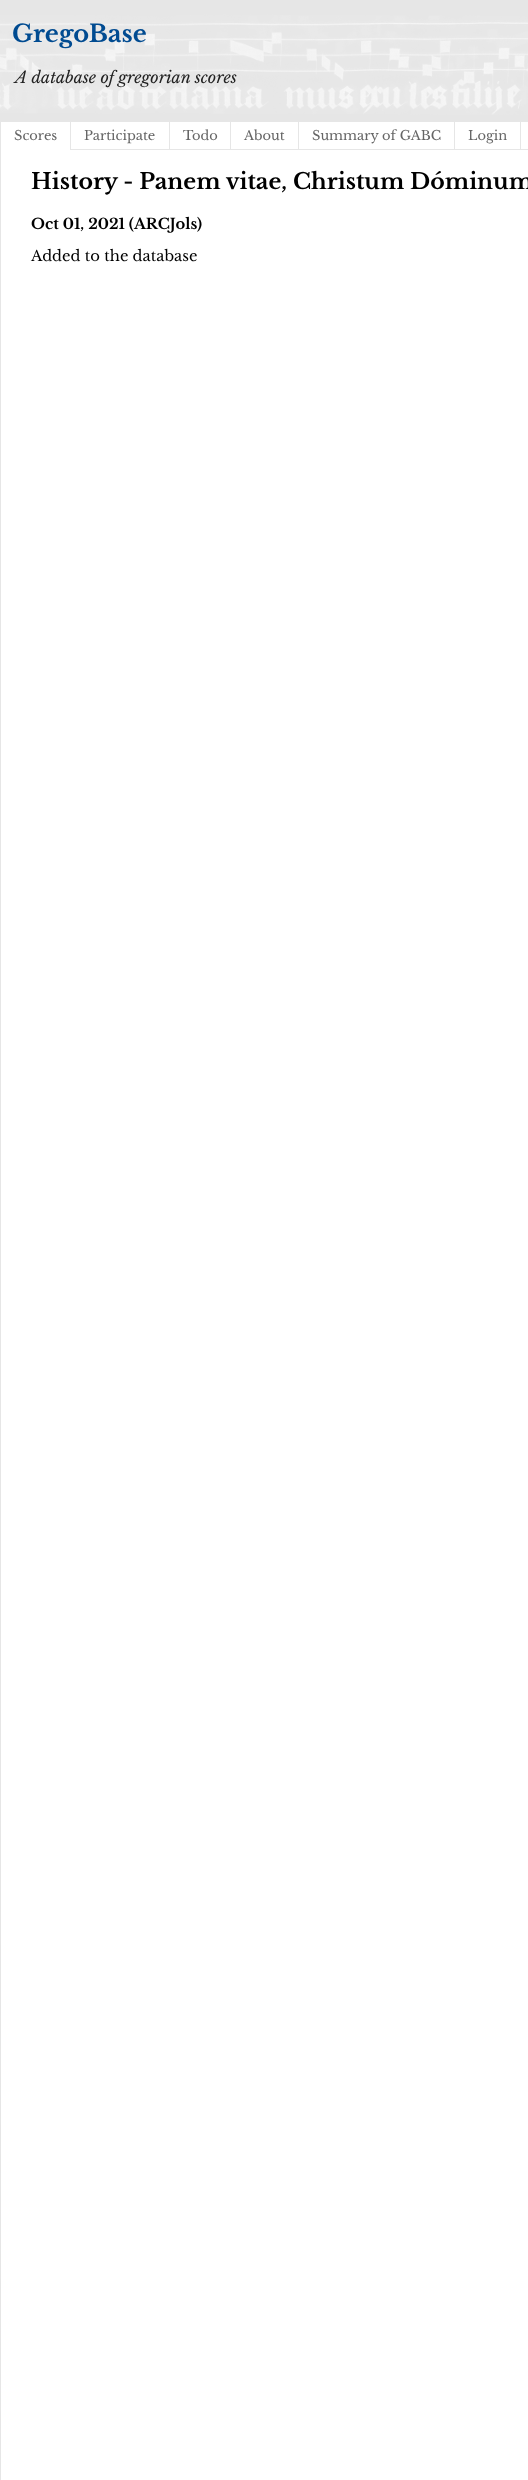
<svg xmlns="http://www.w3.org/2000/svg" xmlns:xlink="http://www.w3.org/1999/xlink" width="528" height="2480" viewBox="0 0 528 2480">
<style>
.cls-1{font:bold 24px Libre Baskerville;fill:#004b91}
.cls-2{font:italic 16px Libre Baskerville;fill:#222222}
.cls-3{font:13px Libre Baskerville;fill:#666666}
.cls-4{font:bold 22px Libre Baskerville;fill:#000000}
.cls-5{font:bold 14.75px Libre Baskerville;fill:#000000}
.cls-6{font:14.75px Libre Baskerville;fill:#000000}
</style>
<rect width="100%" height="100%" fill="#ffffff"/>
<image xlink:href="image0.png" x="0" y="0" width="528" height="121"/>
<rect fill="#e6e6e6" x="0" y="121" width="71" height="1"/>
<rect fill="#e6e6e6" x="0" y="121" width="1" height="29"/>
<rect fill="none" stroke="#e6e6e6" x="70.5" y="121.5" width="99" height="28"/>
<rect fill="none" stroke="#e6e6e6" x="169.5" y="121.5" width="61" height="28"/>
<rect fill="none" stroke="#e6e6e6" x="230.5" y="121.5" width="68" height="28"/>
<rect fill="none" stroke="#e6e6e6" x="298.5" y="121.5" width="156" height="28"/>
<rect fill="none" stroke="#e6e6e6" x="454.5" y="121.5" width="66" height="28"/>
<rect fill="none" stroke="#e6e6e6" x="520.5" y="121.5" width="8" height="28"/>
<rect fill="#e6e6e6" x="0" y="150" width="1" height="2330"/>
<text class="cls-1" x="12" y="42">GregoBase</text>
<text class="cls-2" x="15" y="83">A database of gregorian scores</text>
<text class="cls-3" x="14" y="140">Scores</text>
<text class="cls-3" x="84" y="140">Participate</text>
<text class="cls-3" x="183" y="140">Todo</text>
<text class="cls-3" x="244" y="140">About</text>
<text class="cls-3" x="312" y="140">Summary of GABC</text>
<text class="cls-3" x="468" y="140">Login</text>
<text class="cls-4" x="31" y="189">History - Panem vitae, Christum Dóminum</text>
<text class="cls-5" x="31" y="229">Oct 01, 2021 (ARCJols)</text>
<text class="cls-6" x="31" y="261">Added to the database</text>
</svg>
